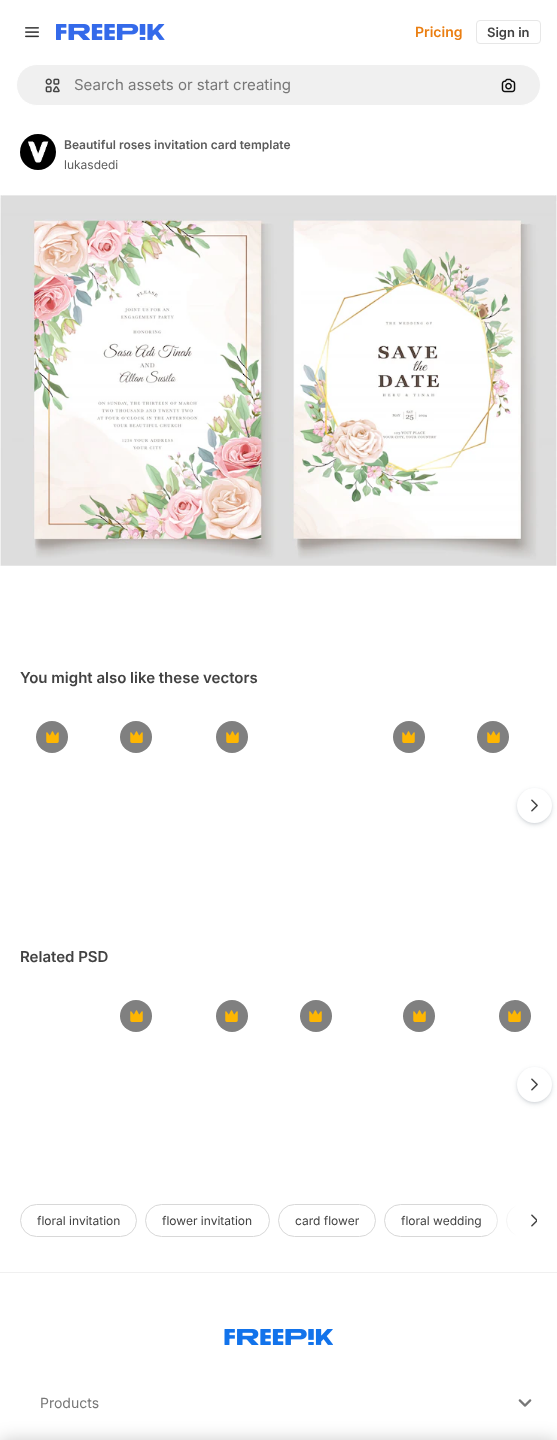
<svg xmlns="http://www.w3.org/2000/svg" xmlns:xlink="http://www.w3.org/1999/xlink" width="557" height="1440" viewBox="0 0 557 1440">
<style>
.cls-1{font:600 14px Inter;fill:#ea7e11}
.cls-2{font:600 13px Inter;fill:#424242}
.cls-3{font:15px Inter;fill:#777777}
.cls-4{font:600 12px Inter;fill:#5c5c5c}
.cls-5{font:12px Inter;fill:#5c5c5c}
.cls-6{font:600 15px Inter;fill:#424242}
.cls-7{font:12px Inter;fill:#424242}
.cls-8{font:14px Inter;fill:#777777}
</style>
<defs>
<clipPath id="clip1"><rect x="20" y="1204" width="517" height="33"/></clipPath>
<linearGradient id="g1" gradientUnits="userSpaceOnUse" x1="517" y1="1221" x2="482" y2="1221"><stop offset="0" stop-color="#ffffff"/><stop offset="1" stop-color="#ffffff" stop-opacity="0"/></linearGradient>
</defs>
<rect width="100%" height="100%" fill="#ffffff"/>
<image xlink:href="image0.png" x="25" y="27" width="14" height="11"/>
<image xlink:href="image1.png" x="56" y="24" width="109" height="16"/>
<rect fill="none" stroke="#e7e7e7" x="476.5" y="20.5" width="64" height="23" rx="3.5"/>
<rect fill="#f0f0f0" stroke="#ffffff" x="16.5" y="64.5" width="524" height="41" rx="20.5"/>
<image xlink:href="image2.png" x="45" y="78" width="15" height="15"/>
<image xlink:href="image3.png" x="501" y="78" width="15" height="15"/>
<image xlink:href="image4.png" x="20" y="134" width="36" height="36"/>
<image xlink:href="image5.png" x="0" y="195" width="557" height="371"/>
<circle fill="#808080" cx="52" cy="737" r="16"/>
<image xlink:href="image6.png" x="46" y="731" width="13" height="12"/>
<circle fill="#808080" cx="136" cy="737" r="16"/>
<image xlink:href="image6.png" x="130" y="731" width="13" height="12"/>
<circle fill="#808080" cx="232" cy="737" r="16"/>
<image xlink:href="image6.png" x="226" y="731" width="13" height="12"/>
<circle fill="#808080" cx="409" cy="737" r="16"/>
<image xlink:href="image6.png" x="402" y="731" width="13" height="12"/>
<circle fill="#808080" cx="493" cy="737" r="16"/>
<image xlink:href="image6.png" x="487" y="731" width="13" height="12"/>
<rect fill="#374957" fill-opacity="0.15" filter="blur(2.5px)" x="517" y="790" width="35" height="35" rx="17.5"/>
<rect fill="#374957" fill-opacity="0.1" filter="blur(1px)" x="517" y="789" width="35" height="35" rx="17.5"/>
<circle fill="#ffffff" cx="534.5" cy="805.5" r="17.5"/>
<image xlink:href="image7.png" x="531" y="799" width="7" height="13"/>
<circle fill="#808080" cx="136" cy="1016" r="16"/>
<image xlink:href="image6.png" x="130" y="1010" width="13" height="12"/>
<circle fill="#808080" cx="232" cy="1016" r="16"/>
<image xlink:href="image6.png" x="225" y="1010" width="13" height="12"/>
<circle fill="#808080" cx="316" cy="1016" r="16"/>
<image xlink:href="image6.png" x="309" y="1010" width="13" height="12"/>
<circle fill="#808080" cx="419" cy="1016" r="16"/>
<image xlink:href="image6.png" x="413" y="1010" width="13" height="12"/>
<circle fill="#808080" cx="515" cy="1016" r="16"/>
<image xlink:href="image6.png" x="508" y="1010" width="13" height="12"/>
<rect fill="#374957" fill-opacity="0.15" filter="blur(2.5px)" x="517" y="1069" width="35" height="35" rx="17.5"/>
<rect fill="#374957" fill-opacity="0.1" filter="blur(1px)" x="517" y="1068" width="35" height="35" rx="17.5"/>
<circle fill="#ffffff" cx="534.5" cy="1084.5" r="17.5"/>
<image xlink:href="image7.png" x="531" y="1078" width="7" height="13"/>
<rect fill="none" stroke="#d8d8d8" x="20.5" y="1204.5" width="116" height="32" rx="16"/>
<rect fill="none" stroke="#d8d8d8" x="145.5" y="1204.5" width="124" height="32" rx="16"/>
<rect fill="none" stroke="#d8d8d8" x="278.5" y="1204.5" width="97" height="32" rx="16"/>
<rect fill="none" stroke="#d8d8d8" x="384.5" y="1204.5" width="113" height="32" rx="16"/>
<g clip-path="url(#clip1)">
<rect fill="none" stroke="#d8d8d8" x="506.5" y="1204.5" width="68" height="32" rx="16"/>
</g>
<rect fill="#ffffff" x="517" y="1204" width="20" height="33"/>
<rect fill="url(#g1)" x="486" y="1205" width="31" height="31"/>
<image xlink:href="image8.png" x="531" y="1214" width="6" height="13"/>
<rect fill="#f0f0f0" x="0" y="1272" width="557" height="1"/>
<image xlink:href="image9.png" x="224" y="1329" width="109" height="16"/>
<image xlink:href="image10.png" x="518" y="1399" width="14" height="8"/>
<rect fill="#000000" fill-opacity="0.2" filter="blur(9px)" x="0" y="1440" width="557" height="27"/>
<text class="cls-1" x="415" y="37">Pricing</text>
<text class="cls-2" x="487" y="37">Sign in</text>
<text class="cls-3" x="74" y="90">Search assets or start creating</text>
<text class="cls-4" x="64" y="149">Beautiful roses invitation card template</text>
<text class="cls-5" x="64" y="169">lukasdedi</text>
<text class="cls-6" x="20" y="683">You might also like these vectors</text>
<text class="cls-6" x="20" y="962">Related PSD</text>
<text class="cls-7" x="37" y="1225">floral invitation</text>
<text class="cls-7" x="162" y="1225">flower invitation</text>
<text class="cls-7" x="295" y="1225">card flower</text>
<text class="cls-7" x="401" y="1225">floral wedding</text>
<text class="cls-8" x="40" y="1408">Products</text>
</svg>
